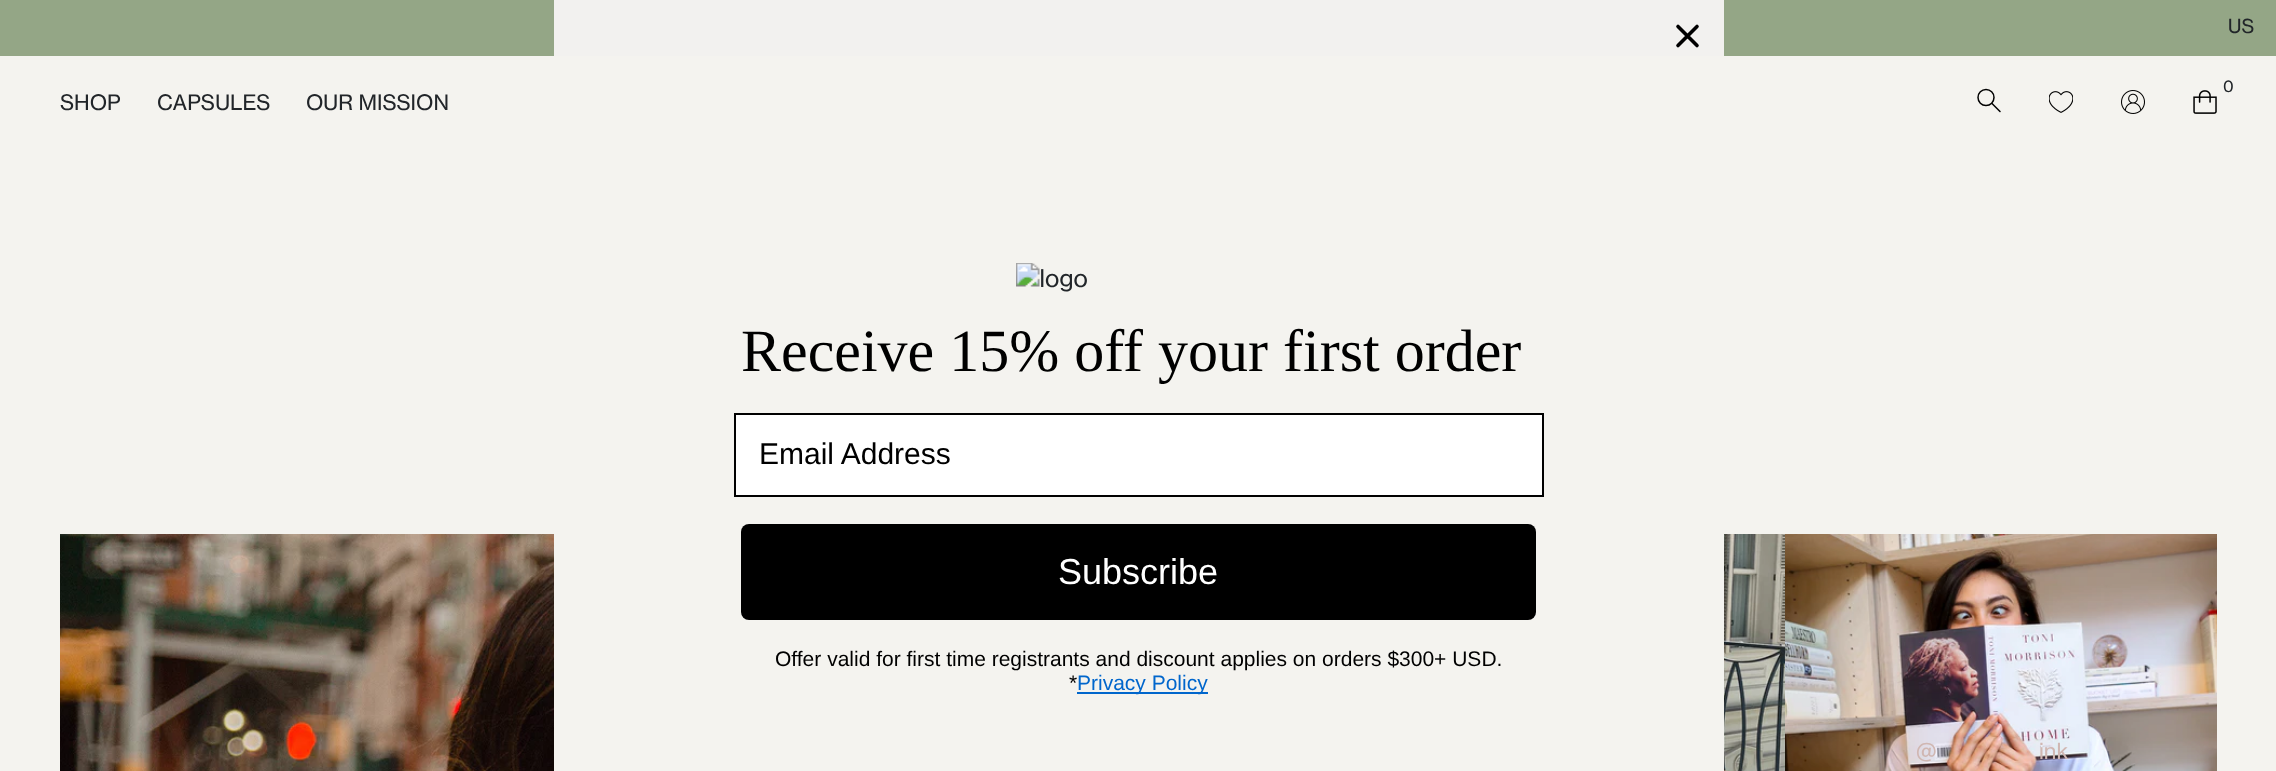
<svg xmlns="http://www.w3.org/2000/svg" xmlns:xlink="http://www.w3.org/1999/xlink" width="2276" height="771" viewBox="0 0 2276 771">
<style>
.cls-1{font:19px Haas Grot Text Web;fill:#212529}
.cls-2{font:16px Haas Grot Text Web;fill:#212529}
.cls-3{font:21px Haas Grot Text Web;fill:#212529}
.cls-4{font:60px Liberation Serif;fill:#000000}
.cls-5{font:30px Liberation Sans;fill:#000000}
.cls-6{font:36px Liberation Sans;fill:#ffffff}
.cls-7{font:21px Liberation Sans;fill:#000000}
.cls-8{font:21px Liberation Sans;fill:#0066cc}
.cls-9{font:22px Haas Grot Text Web;fill:#d0b7b2}
</style>
<rect width="100%" height="100%" fill="#f4f3ef"/>
<rect fill="#94a686" x="0" y="0" width="2276" height="56"/>
<image xlink:href="image0.png" x="2193" y="90" width="24" height="24"/>
<circle fill="none" stroke="#000000" stroke-width="1.5" cx="1986" cy="97.5" r="8"/>
<path fill="none" stroke="#000000" stroke-width="1.5" stroke-linecap="round" d="M2000 111.5L1992 103.5"/>
<image xlink:href="image1.png" x="2049" y="91" width="24" height="22"/>
<image xlink:href="image2.png" x="2121" y="90" width="24" height="24"/>
<rect fill="#f2f1ef" x="554" y="0" width="1170" height="56"/>
<path fill="none" stroke="#000000" stroke-width="3.6" stroke-linecap="round" stroke-linejoin="round" d="M1678 26.5L1697 45.5M1678 45.5L1697 26.5Z"/>
<image xlink:href="image3.png" x="1016" y="263" width="71" height="29"/>
<rect fill="#ffffff" stroke="#000000" stroke-width="2" x="735" y="414" width="808" height="82"/>
<rect fill="#000000" x="741" y="524" width="795" height="96" rx="8"/>
<rect fill="#0066cc" x="1077" y="692" width="131" height="2"/>
<image xlink:href="image4.png" x="60" y="534" width="494" height="237"/>
<image xlink:href="image5.png" x="1724" y="534" width="61" height="237"/>
<image xlink:href="image6.png" x="1785" y="534" width="432" height="237"/>
<text class="cls-1" x="2228" y="33">US</text>
<text class="cls-2" x="2223" y="92">0</text>
<text class="cls-3" x="60" y="110">SHOP</text>
<text class="cls-3" x="157" y="110">CAPSULES</text>
<text class="cls-3" x="306" y="110">OUR MISSION</text>
<text class="cls-4" x="741" y="371">Receive 15% off your first order</text>
<text class="cls-5" x="759" y="464">Email Address</text>
<text class="cls-6" x="1058" y="584">Subscribe</text>
<text class="cls-7" x="775" y="666">Offer valid for first time registrants and discount applies on orders $300+ USD.</text>
<text class="cls-7" x="1069" y="690">*</text>
<text class="cls-8" x="1077" y="690">Privacy Policy</text>
<text class="cls-9" x="1916" y="759">@</text>
<text class="cls-9" x="2039" y="759">ink</text>
</svg>
